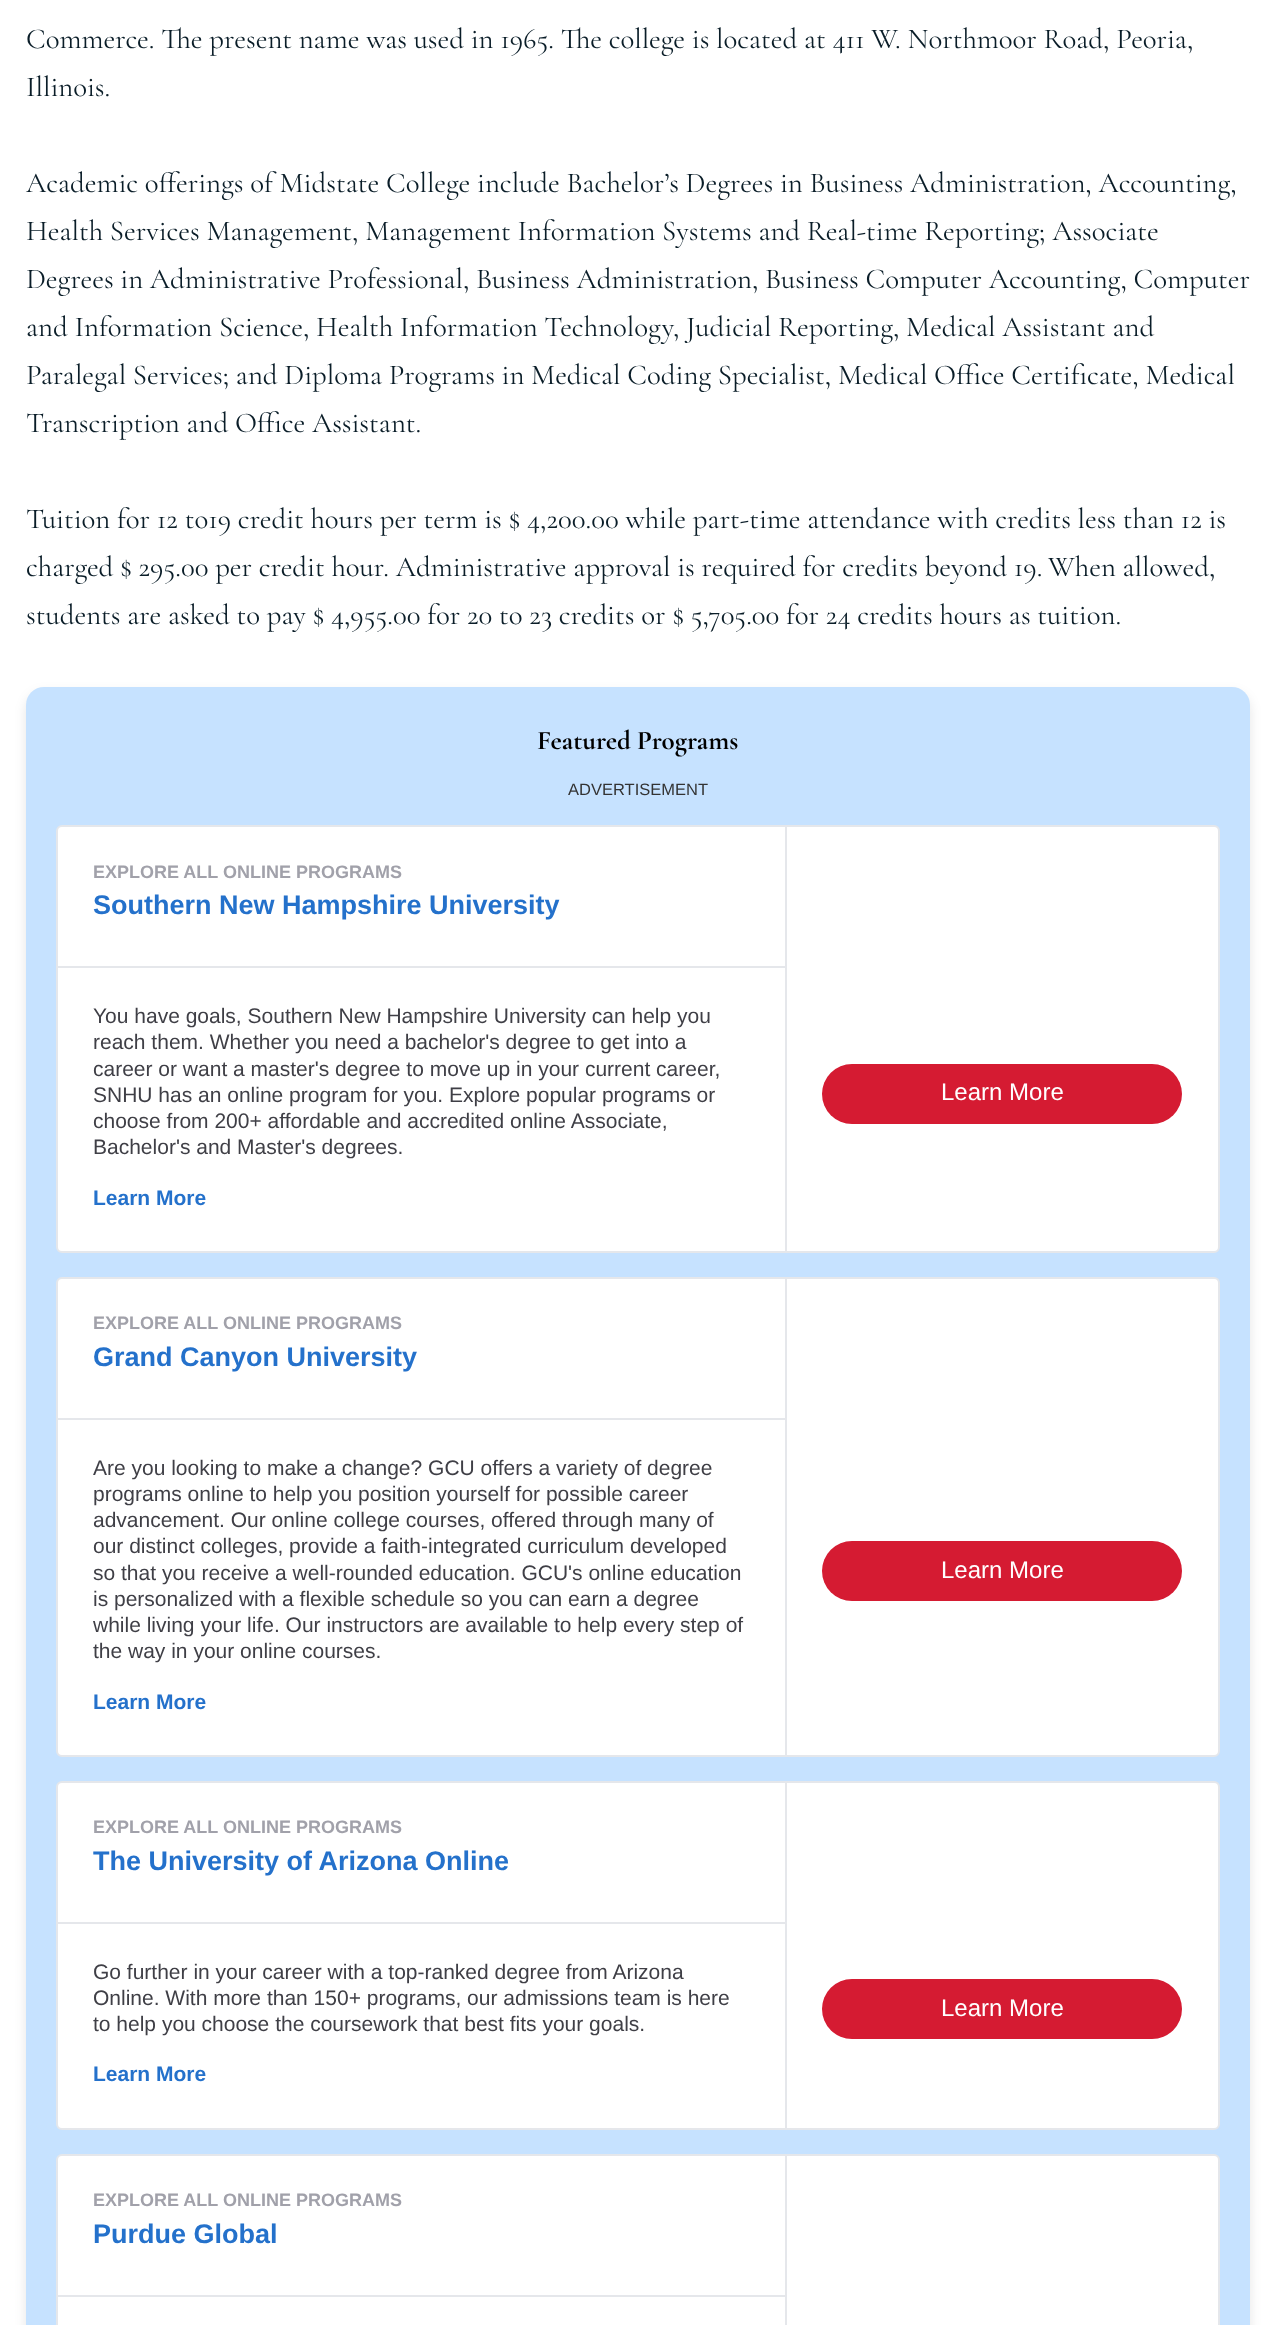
<svg xmlns="http://www.w3.org/2000/svg" xmlns:xlink="http://www.w3.org/1999/xlink" width="1274" height="2325" viewBox="0 0 1274 2325">
<style>
.cls-1{font:28.8px Cormorant Garamond;fill:#0a1d28}
.cls-2{font:bold 27px Cormorant Garamond;fill:#000000}
.cls-3{font:16.5px Liberation Sans;fill:#333333}
.cls-4{font:bold 18px Liberation Sans;fill:#a1a1aa}
.cls-5{font:bold 27px Liberation Sans;fill:#2471cb}
.cls-6{font:21px Liberation Sans;fill:#3f3f46}
.cls-7{font:bold 21px Liberation Sans;fill:#2471cb}
.cls-8{font:24px Liberation Sans;fill:#ffffff}
</style>
<rect width="100%" height="100%" fill="#ffffff"/>
<rect fill="#000000" fill-opacity="0.1" filter="blur(6px)" x="26" y="693" width="1224" height="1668" rx="18"/>
<rect fill="#c6e2ff" x="26" y="687" width="1224" height="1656" rx="18"/>
<rect fill="#ffffff" stroke="#e5e7eb" stroke-width="2" x="57" y="826" width="1162" height="426" rx="5"/>
<rect fill="#e5e7eb" x="785" y="827" width="2" height="424"/>
<rect fill="#e5e7eb" x="57" y="966" width="728" height="2"/>
<rect fill="#d51b32" x="822" y="1064" width="360" height="60" rx="30"/>
<rect fill="#ffffff" stroke="#e5e7eb" stroke-width="2" x="57" y="1278" width="1162" height="478" rx="5"/>
<rect fill="#e5e7eb" x="785" y="1278" width="2" height="477"/>
<rect fill="#e5e7eb" x="57" y="1418" width="728" height="2"/>
<rect fill="#d51b32" x="822" y="1541" width="360" height="60" rx="30"/>
<rect fill="#ffffff" stroke="#e5e7eb" stroke-width="2" x="57" y="1782" width="1162" height="347" rx="5"/>
<rect fill="#e5e7eb" x="785" y="1782" width="2" height="347"/>
<rect fill="#e5e7eb" x="57" y="1922" width="728" height="2"/>
<rect fill="#d51b32" x="822" y="1979" width="360" height="60" rx="30"/>
<rect fill="#ffffff" stroke="#e5e7eb" stroke-width="2" x="57" y="2155" width="1162" height="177" rx="5"/>
<rect fill="#e5e7eb" x="785" y="2156" width="2" height="169"/>
<rect fill="#e5e7eb" x="57" y="2295" width="728" height="2"/>
<text class="cls-1"><tspan x="26" y="48">Commerce. The present name was used in 1965. The college is located at 411 W. Northmoor Road, Peoria,</tspan><tspan x="26" y="96">Illinois.</tspan></text>
<text class="cls-1"><tspan x="26" y="192">Academic offerings of Midstate College include Bachelor’s Degrees in Business Administration, Accounting,</tspan><tspan x="26" y="240">Health Services Management, Management Information Systems and Real-time Reporting; Associate</tspan><tspan x="26" y="288">Degrees in Administrative Professional, Business Administration, Business Computer Accounting, Computer</tspan><tspan x="26" y="336">and Information Science, Health Information Technology, Judicial Reporting, Medical Assistant and</tspan><tspan x="26" y="384">Paralegal Services; and Diploma Programs in Medical Coding Specialist, Medical Office Certificate, Medical</tspan><tspan x="26" y="432">Transcription and Office Assistant.</tspan></text>
<text class="cls-1"><tspan x="26" y="528">Tuition for 12 to19 credit hours per term is $ 4,200.00 while part-time attendance with credits less than 12 is</tspan><tspan x="26" y="576">charged $ 295.00 per credit hour. Administrative approval is required for credits beyond 19.</tspan></text>
<text class="cls-1" x="1048" y="576">When allowed,</text>
<text class="cls-1" x="26" y="624">students are asked to pay $ 4,955.00 for 20 to 23 credits or $ 5,705.00 for 24 credits hours as tuition.</text>
<text class="cls-2" x="537" y="749">Featured Programs</text>
<text class="cls-3" x="568" y="795">ADVERTISEMENT</text>
<text class="cls-4" x="93" y="878">EXPLORE ALL ONLINE PROGRAMS</text>
<text class="cls-5" x="93" y="914">Southern New Hampshire University</text>
<text class="cls-6"><tspan x="93" y="1023">You have goals, Southern New Hampshire University can help you</tspan><tspan x="93" y="1049">reach them. Whether you need a bachelor's degree to get into a</tspan><tspan x="93" y="1076">career or want a master's degree to move up in your current career,</tspan><tspan x="93" y="1102">SNHU has an online program for you. Explore popular programs or</tspan><tspan x="93" y="1128">choose from 200+ affordable and accredited online Associate,</tspan><tspan x="93" y="1154">Bachelor's and Master's degrees.</tspan></text>
<text class="cls-7" x="93" y="1205">Learn More</text>
<text class="cls-8" x="941" y="1100">Learn More</text>
<text class="cls-4" x="93" y="1329">EXPLORE ALL ONLINE PROGRAMS</text>
<text class="cls-5" x="93" y="1366">Grand Canyon University</text>
<text class="cls-6"><tspan x="93" y="1475">Are you looking to make a change? GCU offers a variety of degree</tspan><tspan x="93" y="1501">programs online to help you position yourself for possible career</tspan><tspan x="93" y="1527">advancement. Our online college courses, offered through many of</tspan><tspan x="93" y="1553">our distinct colleges, provide a faith-integrated curriculum developed</tspan><tspan x="93" y="1580">so that you receive a well-rounded education. GCU's online education</tspan><tspan x="93" y="1606">is personalized with a flexible schedule so you can earn a degree</tspan><tspan x="93" y="1632">while living your life. Our instructors are available to help every step of</tspan><tspan x="93" y="1658">the way in your online courses.</tspan></text>
<text class="cls-7" x="93" y="1709">Learn More</text>
<text class="cls-8" x="941" y="1578">Learn More</text>
<text class="cls-4" x="93" y="1833">EXPLORE ALL ONLINE PROGRAMS</text>
<text class="cls-5" x="93" y="1870">The University of Arizona Online</text>
<text class="cls-6"><tspan x="93" y="1979">Go further in your career with a top-ranked degree from Arizona</tspan><tspan x="93" y="2005">Online. With more than 150+ programs, our admissions team is here</tspan><tspan x="93" y="2031">to help you choose the coursework that best fits your goals.</tspan></text>
<text class="cls-7" x="93" y="2081">Learn More</text>
<text class="cls-8" x="941" y="2016">Learn More</text>
<text class="cls-4" x="93" y="2206">EXPLORE ALL ONLINE PROGRAMS</text>
<text class="cls-5" x="93" y="2243">Purdue Global</text>
</svg>
